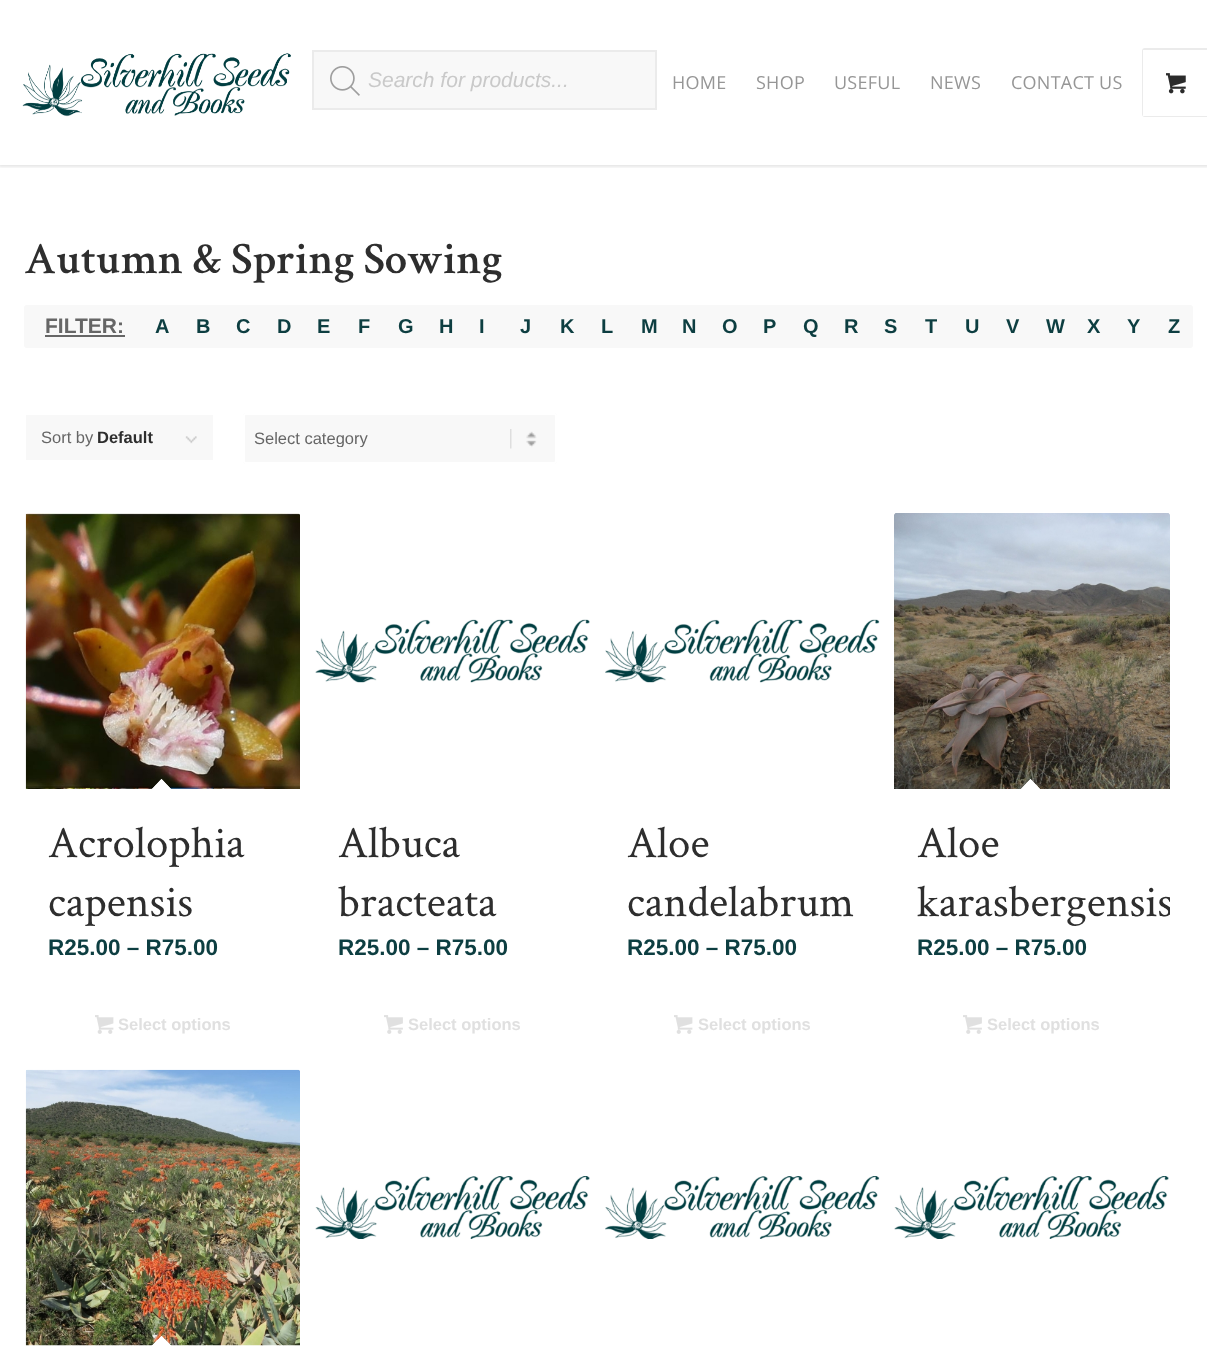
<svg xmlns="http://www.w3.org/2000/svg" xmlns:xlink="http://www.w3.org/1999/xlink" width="1207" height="1369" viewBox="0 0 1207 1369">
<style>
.cls-1{font:italic 21px Liberation Sans;fill:#c9c9c9}
.cls-2{font:18px Open Sans;letter-spacing:0.25px;fill:#969696}
.cls-3{font:600 45px Crimson Text;fill:#2e2e2e}
.cls-4{font:bold 21px Liberation Sans;fill:#666666}
.cls-5{font:bold 20px Liberation Sans;fill:#0d3e41}
.cls-6{font:16.5px Liberation Sans;fill:#666666}
.cls-7{font:bold 16.5px Liberation Sans;fill:#2e2e2e}
.cls-8{font:45px Crimson Text;fill:#2e2e2e}
.cls-9{font:bold 22.5px Liberation Sans;fill:#0d3e41}
.cls-10{font:bold 16.5px Liberation Sans;fill:#e0e0e0}
</style>
<defs>
<clipPath id="clip1"><rect x="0" y="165" width="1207" height="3"/></clipPath>
<clipPath id="clip2"><rect x="254" y="429" width="256" height="18"/></clipPath>
<clipPath id="clip3"><rect x="894" y="513" width="276" height="476" rx="1.5"/></clipPath>
</defs>
<rect width="100%" height="100%" fill="#ffffff"/>
<g clip-path="url(#clip1)">
<rect fill="#000000" fill-opacity="0.1" filter="blur(1.5px)" x="-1" y="-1" width="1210" height="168"/>
</g>
<image xlink:href="image0.png" x="22" y="53" width="269" height="64"/>
<rect fill="#f8f8f8" stroke="#ebebeb" stroke-width="2" x="313" y="51" width="343" height="58"/>
<image xlink:href="image1.png" x="330" y="66" width="30" height="30"/>
<rect fill="none" stroke="#ebebeb" stroke-width="2" x="1143" y="49" width="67" height="67" rx="2"/>
<rect fill="#ffffff" x="1143" y="50" width="64" height="66"/>
<image xlink:href="image2.png" x="1166" y="73" width="20" height="21"/>
<rect fill="#f8f8f8" x="24" y="305" width="1169" height="43" rx="3"/>
<rect fill="#666666" x="45" y="335" width="80" height="2"/>
<rect fill="#f8f8f8" x="26" y="415" width="187" height="45"/>
<image xlink:href="image3.png" x="185" y="436" width="12" height="8"/>
<rect fill="#f8f8f8" x="243" y="413" width="314" height="51" rx="3"/>
<image xlink:href="image4.png" x="510" y="429" width="27" height="20"/>
<rect fill="none" stroke="#ffffff" stroke-width="2" x="244" y="414" width="312" height="49" rx="2"/>
<image xlink:href="image5.png" x="25" y="513" width="275" height="276"/>
<path fill="#ffffff" d="M161.5 779L172 790L161.5 800.5L151 790Z"/>
<path fill="#ffffff" d="M161.5 779L172 790L171 791L160.5 780.5Z"/>
<path fill="#ffffff" d="M161.5 779L162.5 780.5L152 791L151 790Z"/>
<image xlink:href="image6.png" x="95" y="1015" width="19" height="19"/>
<image xlink:href="image7.png" x="315" y="619" width="275" height="64"/>
<image xlink:href="image8.png" x="384" y="1015" width="19" height="19"/>
<image xlink:href="image9.png" x="605" y="619" width="275" height="64"/>
<image xlink:href="image6.png" x="674" y="1015" width="19" height="19"/>
<image xlink:href="image10.png" x="894" y="513" width="276" height="276"/>
<path fill="#ffffff" d="M1030.5 779L1041 790L1030.5 800.5L1020 790Z"/>
<path fill="#ffffff" d="M1030.5 779L1041 790L1040 791L1029.5 780.5Z"/>
<path fill="#ffffff" d="M1030.5 779L1031.5 780.5L1021 791L1020 790Z"/>
<image xlink:href="image8.png" x="963" y="1015" width="19" height="19"/>
<image xlink:href="image11.png" x="25" y="1069" width="275" height="277"/>
<path fill="#ffffff" d="M161.5 1336L172 1346.5L161.5 1357L151 1346.5Z"/>
<path fill="#ffffff" d="M161.5 1336L172 1346.5L171 1347.5L160.5 1337Z"/>
<path fill="#ffffff" d="M161.5 1336L162.5 1337L152 1347.5L151 1346.5Z"/>
<image xlink:href="image12.png" x="315" y="1176" width="275" height="63"/>
<image xlink:href="image13.png" x="605" y="1176" width="275" height="63"/>
<image xlink:href="image14.png" x="894" y="1176" width="275" height="63"/>
<text class="cls-1" x="368" y="87">Search for products...</text>
<text class="cls-2" x="672" y="89">HOME</text>
<text class="cls-2" x="756" y="89">SHOP</text>
<text class="cls-2" x="834" y="89">USEFUL</text>
<text class="cls-2" x="930" y="89">NEWS</text>
<text class="cls-2" x="1011" y="89">CONTACT US</text>
<text class="cls-3" x="24" y="273">Autumn &amp; Spring Sowing</text>
<text class="cls-4" x="45" y="333">FILTER:</text>
<text class="cls-5" x="155" y="333">A</text>
<text class="cls-5" x="196" y="333">B</text>
<text class="cls-5" x="236" y="333">C</text>
<text class="cls-5" x="277" y="333">D</text>
<text class="cls-5" x="317" y="333">E</text>
<text class="cls-5" x="358" y="333">F</text>
<text class="cls-5" x="398" y="333">G</text>
<text class="cls-5" x="439" y="333">H</text>
<text class="cls-5" x="479" y="333">I</text>
<text class="cls-5" x="520" y="333">J</text>
<text class="cls-5" x="560" y="333">K</text>
<text class="cls-5" x="601" y="333">L</text>
<text class="cls-5" x="641" y="333">M</text>
<text class="cls-5" x="682" y="333">N</text>
<text class="cls-5" x="722" y="333">O</text>
<text class="cls-5" x="763" y="333">P</text>
<text class="cls-5" x="803" y="333">Q</text>
<text class="cls-5" x="844" y="333">R</text>
<text class="cls-5" x="884" y="333">S</text>
<text class="cls-5" x="925" y="333">T</text>
<text class="cls-5" x="965" y="333">U</text>
<text class="cls-5" x="1006" y="333">V</text>
<text class="cls-5" x="1046" y="333">W</text>
<text class="cls-5" x="1087" y="333">X</text>
<text class="cls-5" x="1127" y="333">Y</text>
<text class="cls-5" x="1168" y="333">Z</text>
<text class="cls-6" x="41" y="443">Sort by</text>
<text class="cls-7" x="97" y="443">Default</text>
<g clip-path="url(#clip2)">
<text class="cls-6" x="254" y="444">Select category</text>
</g>
<text class="cls-8"><tspan x="48" y="857">Acrolophia</tspan><tspan x="48" y="916">capensis</tspan></text>
<text class="cls-9" x="48" y="955">R25.00 – R75.00</text>
<text class="cls-10" x="118" y="1030">Select options</text>
<text class="cls-8"><tspan x="338" y="857">Albuca</tspan><tspan x="338" y="916">bracteata</tspan></text>
<text class="cls-9" x="338" y="955">R25.00 – R75.00</text>
<text class="cls-10" x="408" y="1030">Select options</text>
<text class="cls-8"><tspan x="627" y="857">Aloe</tspan><tspan x="627" y="916">candelabrum</tspan></text>
<text class="cls-9" x="627" y="955">R25.00 – R75.00</text>
<text class="cls-10" x="698" y="1030">Select options</text>
<text class="cls-8" x="917" y="857">Aloe</text>
<g clip-path="url(#clip3)">
<text class="cls-8" x="917" y="916">karasbergensis</text>
</g>
<text class="cls-9" x="917" y="955">R25.00 – R75.00</text>
<text class="cls-10" x="987" y="1030">Select options</text>
</svg>
